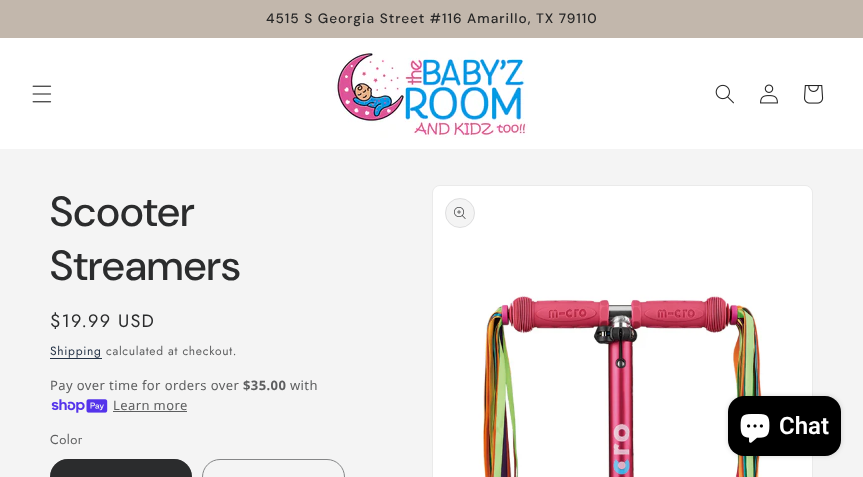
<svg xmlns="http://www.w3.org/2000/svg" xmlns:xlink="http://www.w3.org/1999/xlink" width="863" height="477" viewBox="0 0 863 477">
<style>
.cls-1{font:500 13.65px 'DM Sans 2';letter-spacing:1px;fill:#262626}
.cls-2{font:500 42px DM Sans;letter-spacing:0.6px;fill:#2b2c2d}
.cls-3{font:18px Jost;letter-spacing:1.25px;fill:#2b2c2d}
.cls-4{font:12px Jost;letter-spacing:0.7px;fill:#253347}
.cls-5{font:12px Jost;letter-spacing:0.7px;fill:#5d5e5f}
.cls-6{font:13px Noto Sans;letter-spacing:0.4px;fill:#5d5e5f}
.cls-7{font:bold 13px Noto Sans;letter-spacing:0.4px;fill:#5d5e5f}
.cls-8{font:13px Jost;letter-spacing:0.4px;fill:#5d5e5f}
.cls-9{font:600 24px Roboto;fill:#ffffff}
</style>
<rect width="100%" height="100%" fill="#f4f4f4"/>
<rect fill="#c2b7ac" x="0" y="0" width="863" height="38"/>
<rect fill="#ffffff" x="0" y="38" width="863" height="111"/>
<image xlink:href="image0.png" x="32" y="85" width="20" height="18"/>
<image xlink:href="image1.png" x="332" y="51" width="196" height="87"/>
<image xlink:href="image2.png" x="715" y="84" width="19" height="20"/>
<image xlink:href="image3.png" x="760" y="84" width="18" height="20"/>
<image xlink:href="image4.png" x="804" y="85" width="20" height="19"/>
<rect fill="#253347" x="50" y="358" width="52" height="1"/>
<image xlink:href="image5.png" x="51" y="399" width="57" height="14"/>
<rect fill="#5d5e5f" x="113" y="411" width="74" height="1"/>
<rect fill="#2b2c2d" x="50" y="459" width="142" height="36" rx="18"/>
<rect fill="none" stroke="#2b2c2d" stroke-opacity="0.55" x="50.5" y="459.5" width="141" height="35" rx="17.5"/>
<rect fill="none" stroke="#858687" x="202.5" y="459.5" width="142" height="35" rx="17.5"/>
<rect fill="none" stroke="#eaeaea" x="432.5" y="185.5" width="380" height="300" rx="7.5"/>
<image xlink:href="image6.png" x="433" y="186" width="379" height="291"/>
<circle fill="#f4f4f4" cx="460" cy="213" r="15"/>
<circle fill="none" stroke="#2b2c2d" stroke-opacity="0.1" cx="460" cy="213" r="14.5"/>
<image xlink:href="image7.png" x="454" y="207" width="12" height="12"/>
<rect fill="#000000" fill-opacity="0.15" filter="blur(2.5px)" x="728" y="396" width="113" height="60" rx="16"/>
<rect fill="#000000" x="728" y="396" width="113" height="60" rx="16"/>
<image xlink:href="image8.png" x="740" y="414" width="30" height="29"/>
<text class="cls-1" x="266" y="23">4515 S Georgia Street #116 Amarillo, TX 79110</text>
<text class="cls-2"><tspan x="50" y="226">Scooter</tspan><tspan x="50" y="280">Streamers</tspan></text>
<text class="cls-3" x="50" y="327">$19.99 USD</text>
<text class="cls-4" x="50" y="355">Shipping</text>
<text class="cls-5" x="106" y="355">calculated at checkout.</text>
<text class="cls-6" x="50" y="390">Pay over time for orders over</text>
<text class="cls-7" x="243" y="390">$35.00</text>
<text class="cls-6" x="290" y="390">with</text>
<text class="cls-6" x="113" y="410">Learn more</text>
<text class="cls-8" x="50" y="444">Color</text>
<text class="cls-9" x="779" y="434">Chat</text>
</svg>
